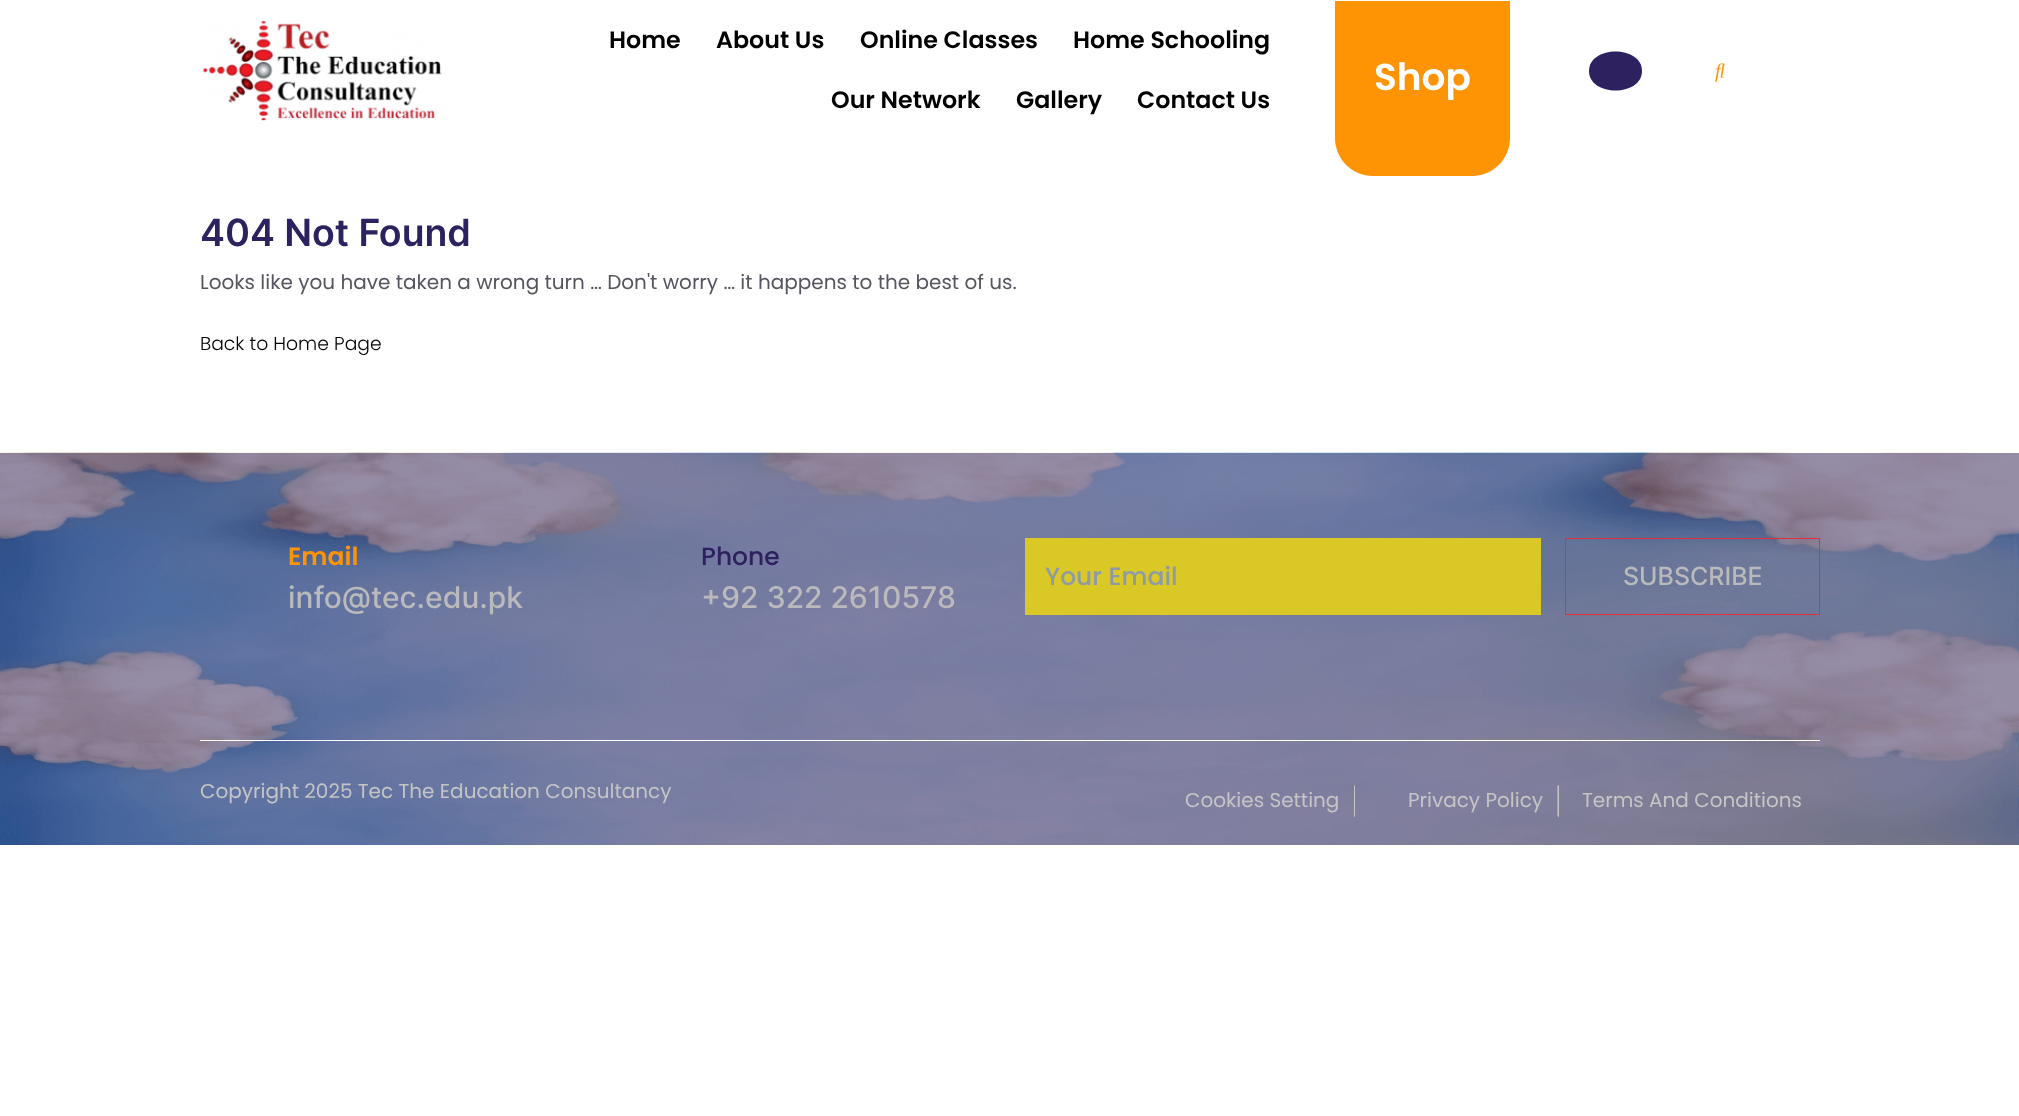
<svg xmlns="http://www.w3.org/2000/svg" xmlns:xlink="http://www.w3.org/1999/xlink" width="2019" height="1116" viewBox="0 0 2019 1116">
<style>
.cls-1{font:600 23.75px Poppins;fill:#000000}
.cls-2{font:600 37.5px Poppins;fill:#ffffff}
.cls-3{font:600 37.5px Inter;fill:#2d215f}
.cls-4{font:20px Poppins;fill:#56545f}
.cls-5{font:300 18.75px Poppins;fill:#000000}
.cls-6{font:600 25px Poppins;fill:#fe9403}
.cls-7{font:500 30px Inter;fill:#bababc}
.cls-8{font:500 25px Poppins;fill:#2d215f}
.cls-9{font:500 25px Poppins;fill:#8e9aa6}
.cls-10{font:500 25px Inter;fill:#bababc}
.cls-11{font:20px Poppins;fill:#c5c5c5}
</style>
<rect width="100%" height="100%" fill="#ffffff"/>
<image xlink:href="image0.png" x="202" y="20" width="240" height="101"/>
<path fill="#fe9403" d="M1335 1H1510V138C1510 159 1493 176 1472 176H1373C1352 176 1335 159 1335 138Z"/>
<path fill="#2d215f" d="M1642 71C1642 97 1589 97 1589 71C1589 45 1642 45 1642 71Z"/>
<image xlink:href="image1.png" x="1715" y="63" width="10" height="19"/>
<image xlink:href="image2.png" x="0" y="452" width="2019" height="393"/>
<rect fill="#ffffff" x="200" y="740" width="1620" height="1"/>
<rect fill="#d9c826" x="1025" y="538" width="516" height="77"/>
<rect fill="none" stroke="#e32e37" x="1565.5" y="538.5" width="254" height="76"/>
<path fill="#c5c5c5" d="M1355 785V817.5L1354 816V786Z"/>
<path fill="#c5c5c5" d="M1559 785V817.5L1557.5 816V786Z"/>
<text class="cls-1" x="609" y="48">Home</text>
<text class="cls-1" x="716" y="48">About Us</text>
<text class="cls-1" x="860" y="48">Online Classes</text>
<text class="cls-1" x="1073" y="48">Home Schooling</text>
<text class="cls-1" x="831" y="108">Our Network</text>
<text class="cls-1" x="1016" y="108">Gallery</text>
<text class="cls-1" x="1137" y="108">Contact Us</text>
<text class="cls-2" x="1374" y="90">Shop</text>
<text class="cls-3" x="200" y="246">404 Not Found</text>
<text class="cls-4" x="200" y="289">Looks like you have taken a wrong turn … Don't worry … it happens to the best of us.</text>
<text class="cls-5" x="200" y="350">Back to Home Page</text>
<text class="cls-6" x="288" y="565">Email</text>
<text class="cls-7" x="288" y="608">info@tec.edu.pk</text>
<text class="cls-8" x="701" y="565">Phone</text>
<text class="cls-7" x="701" y="608">+92 322 2610578</text>
<text class="cls-9" x="1045" y="585">Your Email</text>
<text class="cls-10" x="1623" y="585">SUBSCRIBE</text>
<text class="cls-11" x="200" y="798">Copyright 2025 Tec The Education Consultancy</text>
<text class="cls-11" x="1185" y="807">Cookies Setting</text>
<text class="cls-11" x="1408" y="807">Privacy Policy</text>
<text class="cls-11" x="1582" y="807">Terms And Conditions</text>
</svg>
